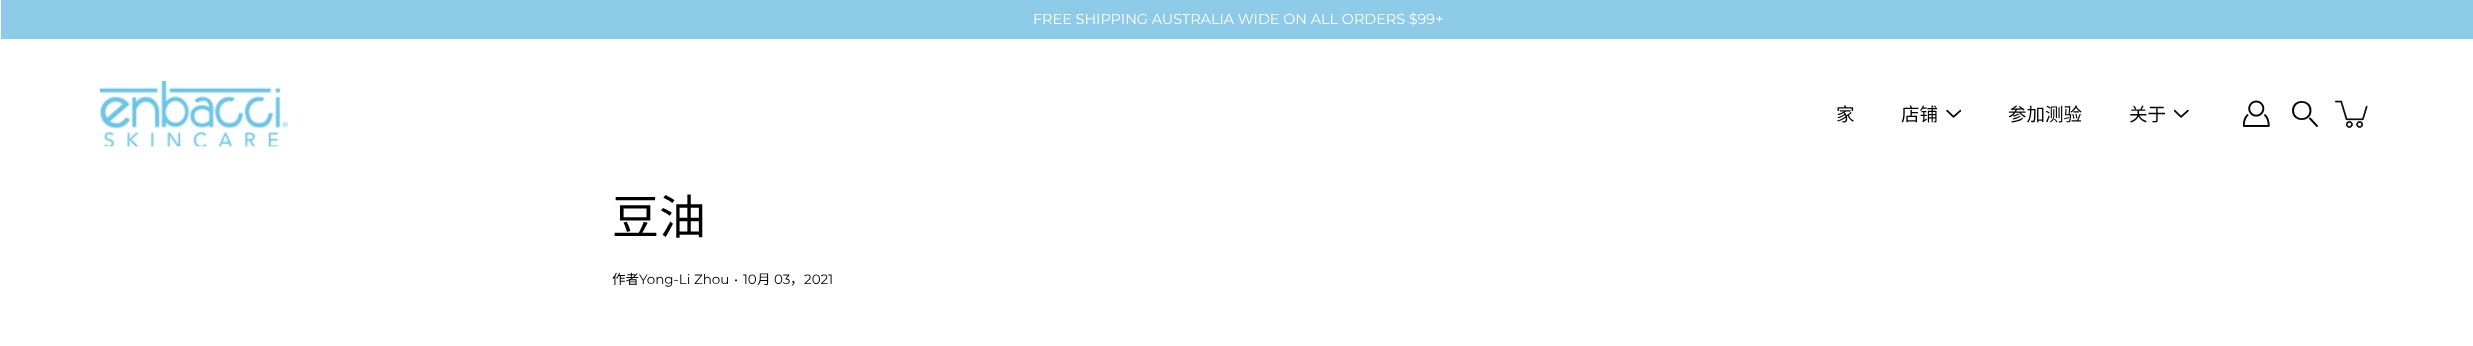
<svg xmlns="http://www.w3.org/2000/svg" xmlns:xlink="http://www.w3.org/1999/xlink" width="2473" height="346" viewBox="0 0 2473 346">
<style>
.cls-1{font:14.4px Montserrat;fill:#ffffff}
.cls-2{font:18.5px Noto Sans CJK SC;fill:#000000}
.cls-3{font:47px Noto Sans CJK SC;fill:#000000}
.cls-4{font:13.5px Noto Sans CJK SC;fill:#000000}
.cls-5{font:13.5px Montserrat;fill:#000000}
</style>
<rect width="100%" height="100%" fill="#ffffff"/>
<rect fill="#8dcbe9" x="1" y="0" width="2472" height="39"/>
<image xlink:href="image0.png" x="100" y="81" width="188" height="66"/>
<image xlink:href="image1.png" x="1946" y="109" width="15" height="9"/>
<image xlink:href="image2.png" x="2174" y="109" width="15" height="9"/>
<image xlink:href="image3.png" x="2243" y="100" width="27" height="27"/>
<path fill="none" stroke="#000000" stroke-width="1.9" d="M2310.5 110.5C2310.5 122 2293 122 2293 110.5C2293 99 2310.5 99 2310.5 110.5Z"/>
<path fill="none" stroke="#000000" stroke-width="1.9" stroke-linecap="round" d="M2310 118.5L2317 126"/>
<image xlink:href="image4.png" x="2335" y="100" width="33" height="28"/>
<text class="cls-1" x="1033" y="24">FREE SHIPPING AUSTRALIA WIDE ON ALL ORDERS $99+</text>
<text class="cls-2" x="1836" y="121">家</text>
<text class="cls-2" x="1901" y="121">店铺</text>
<text class="cls-2" x="2008" y="121">参加测验</text>
<text class="cls-2" x="2129" y="121">关于</text>
<text class="cls-3" x="612" y="234">豆油</text>
<text class="cls-4" x="612" y="284">作者</text>
<text class="cls-5" x="639" y="284">Yong-Li Zhou</text>
<text class="cls-5" x="734" y="284">•</text>
<text class="cls-5" x="743" y="284">10</text>
<text class="cls-4" x="757" y="284">月</text>
<text class="cls-5" x="774" y="284">03</text>
<text class="cls-4" x="790" y="284">，</text>
<text class="cls-5" x="804" y="284">2021</text>
</svg>
